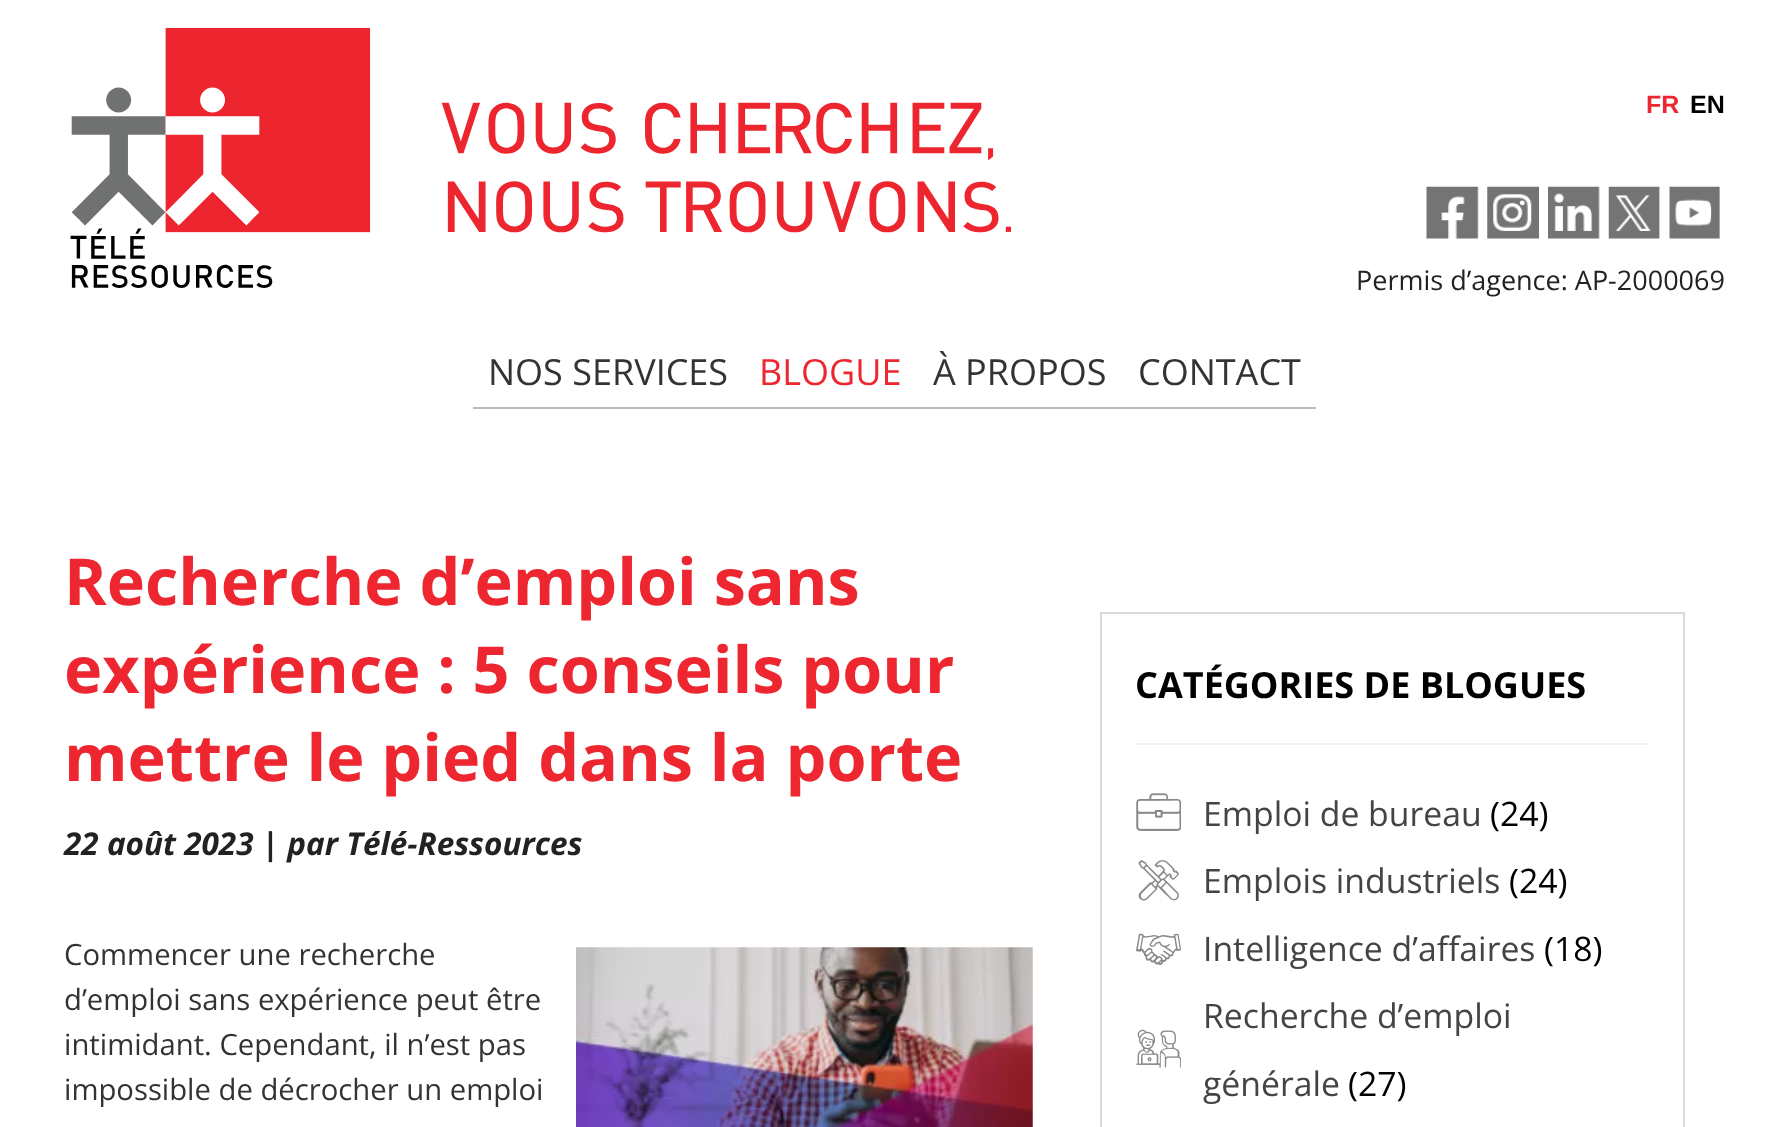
<svg xmlns="http://www.w3.org/2000/svg" xmlns:xlink="http://www.w3.org/1999/xlink" width="1787" height="1127" viewBox="0 0 1787 1127">
<style>
.cls-1{font:bold 25px Liberation Sans;fill:#ed2630}
.cls-2{font:bold 25px Liberation Sans;fill:#000000}
.cls-3{font:27px Open Sans;fill:#222222}
.cls-4{font:36px Open Sans;fill:#333333}
.cls-5{font:36px Open Sans;fill:#ed2630}
.cls-6{font:bold 64.75px Open Sans;fill:#ed2630}
.cls-7{font:italic bold 31.5px Open Sans;fill:#222222}
.cls-8{font:29.25px Open Sans;fill:#333333}
.cls-9{font:bold 36px Open Sans;fill:#000000}
.cls-10{font:33.75px Open Sans;fill:#444444}
.cls-11{font:33.75px Open Sans;fill:#000000}
</style>
<rect width="100%" height="100%" fill="#ffffff"/>
<image xlink:href="image0.png" x="70" y="27" width="941" height="261"/>
<image xlink:href="image1.png" x="1426" y="186" width="53" height="53"/>
<image xlink:href="image2.png" x="1487" y="186" width="52" height="53"/>
<image xlink:href="image3.png" x="1548" y="186" width="52" height="53"/>
<image xlink:href="image4.png" x="1608" y="186" width="53" height="53"/>
<image xlink:href="image5.png" x="1669" y="186" width="51" height="53"/>
<rect fill="#bbbbbb" x="473" y="407" width="843" height="2"/>
<image xlink:href="image6.png" x="576" y="947" width="457" height="180"/>
<rect fill="none" stroke="#d9d9d9" stroke-width="2" x="1101" y="613" width="583" height="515"/>
<rect fill="#f1f1f1" x="1136" y="743" width="513" height="2"/>
<image xlink:href="image7.png" x="1136" y="793" width="45" height="38"/>
<image xlink:href="image8.png" x="1138" y="860" width="41" height="41"/>
<image xlink:href="image9.png" x="1136" y="933" width="45" height="32"/>
<image xlink:href="image10.png" x="1136" y="1029" width="45" height="39"/>
<text class="cls-1" x="1646" y="113">FR</text>
<text class="cls-2" x="1690" y="113">EN</text>
<text class="cls-3" x="1356" y="290">Permis d’agence: AP-2000069</text>
<text class="cls-4" x="488" y="385">NOS SERVICES</text>
<text class="cls-5" x="759" y="385">BLOGUE</text>
<text class="cls-4" x="933" y="385">À PROPOS</text>
<text class="cls-4" x="1138" y="385">CONTACT</text>
<text class="cls-6"><tspan x="64" y="605">Recherche d’emploi sans</tspan><tspan x="64" y="693">expérience : 5 conseils pour</tspan><tspan x="64" y="781">mettre le pied dans la porte</tspan></text>
<text class="cls-7" x="64" y="855">22 août 2023 | par Télé-Ressources</text>
<text class="cls-8"><tspan x="64" y="965">Commencer une recherche</tspan><tspan x="64" y="1010">d’emploi sans expérience peut être</tspan><tspan x="64" y="1055">intimidant. Cependant, il n’est pas</tspan><tspan x="64" y="1100">impossible de décrocher un emploi</tspan></text>
<text class="cls-9" x="1135" y="698">CATÉGORIES DE BLOGUES</text>
<text class="cls-10" x="1203" y="826">Emploi de bureau</text>
<text class="cls-11" x="1490" y="826">(24)</text>
<text class="cls-10" x="1203" y="893">Emplois industriels</text>
<text class="cls-11" x="1509" y="893">(24)</text>
<text class="cls-10" x="1203" y="961">Intelligence d’affaires</text>
<text class="cls-11" x="1544" y="961">(18)</text>
<text class="cls-10" x="1203" y="1028">Recherche d’emploi</text>
<text class="cls-10" x="1203" y="1096">générale</text>
<text class="cls-11" x="1348" y="1096">(27)</text>
</svg>
